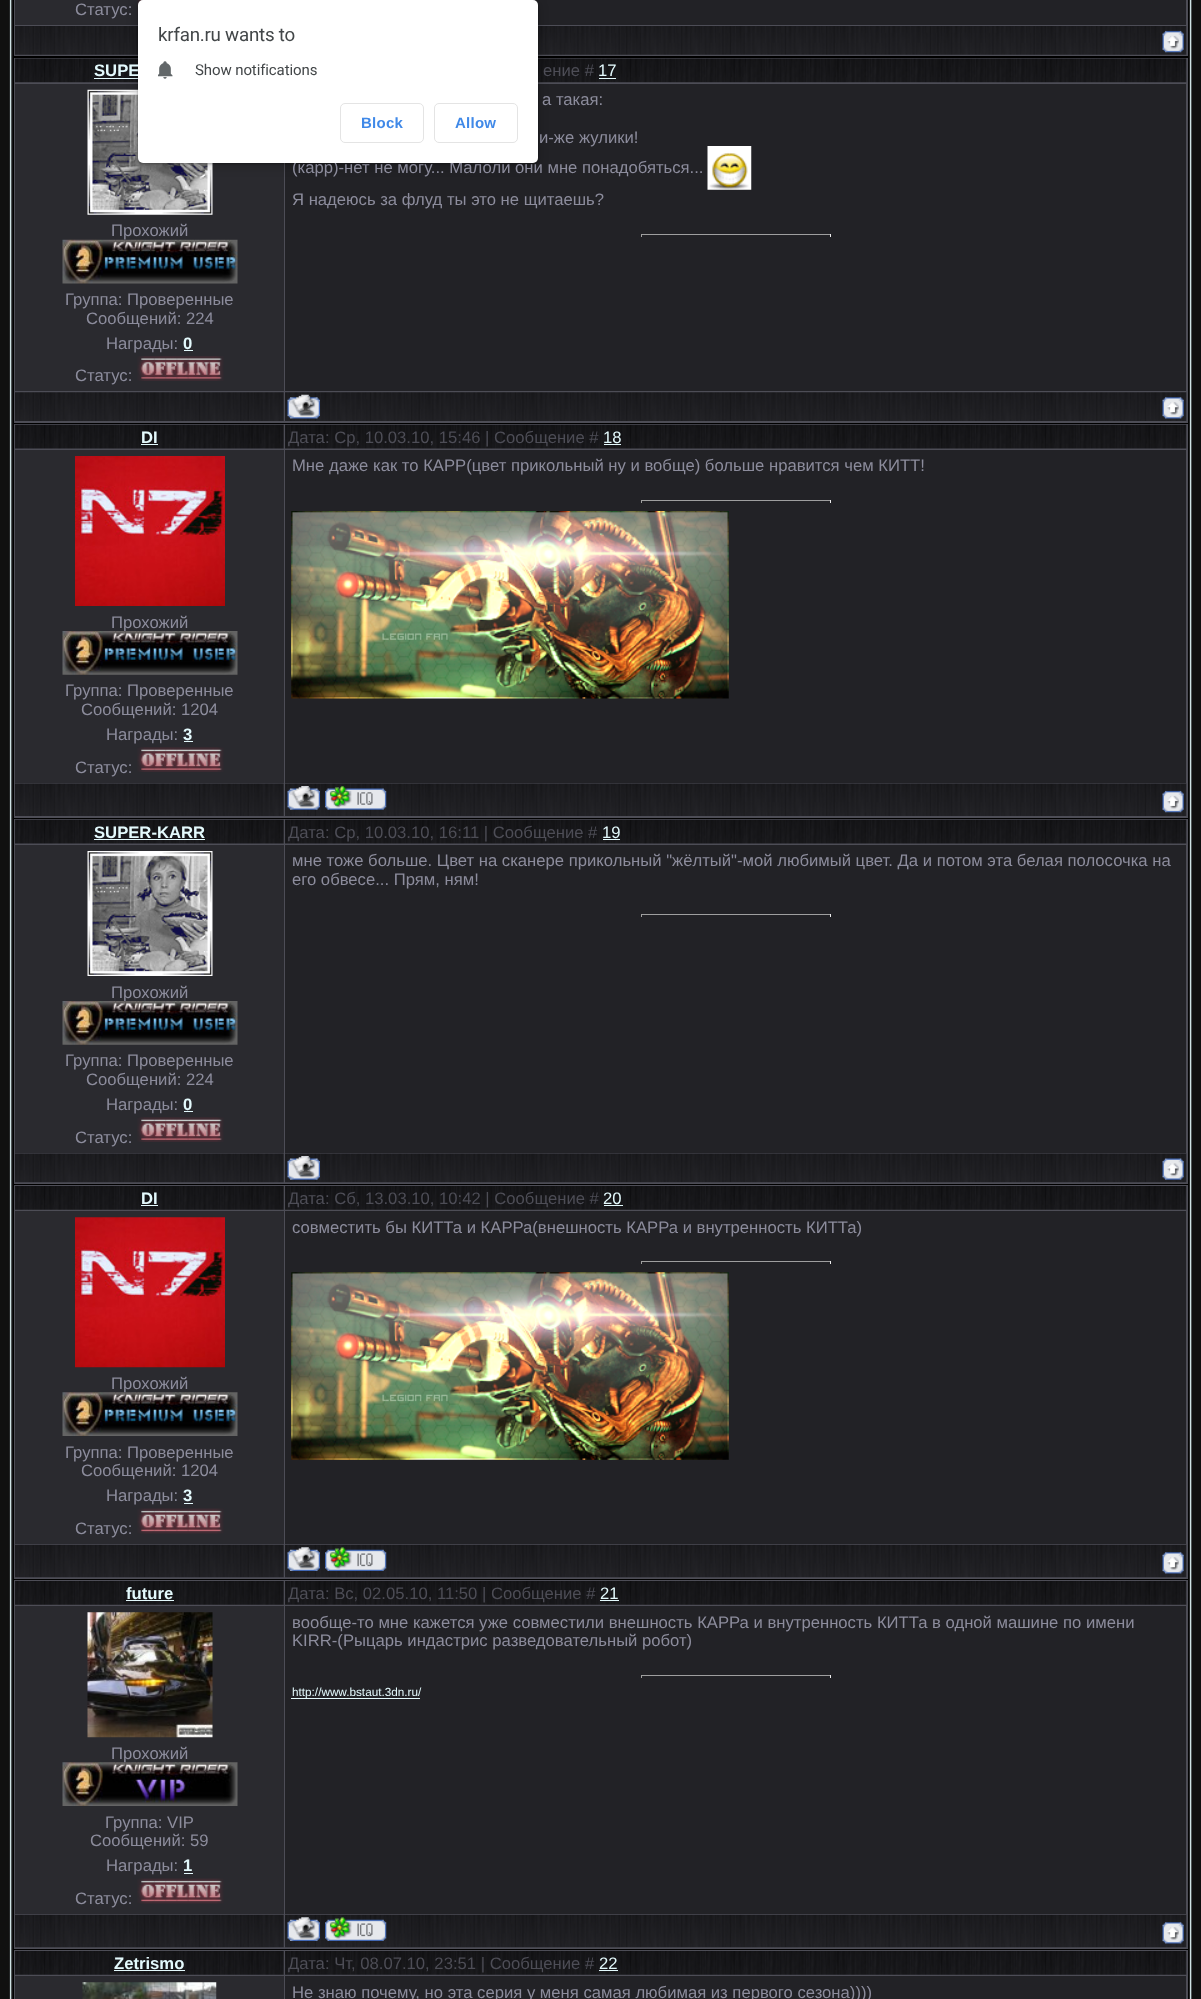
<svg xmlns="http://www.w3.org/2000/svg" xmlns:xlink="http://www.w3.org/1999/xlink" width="1201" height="1999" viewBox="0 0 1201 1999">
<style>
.cls-1{font:16.67px Liberation Sans;fill:#8c8c9c}
.cls-2{font:bold 16.67px Liberation Sans;fill:#e4fafd}
.cls-3{font:16.67px Liberation Sans;fill:#4d4d56}
.cls-4{font:16.67px Liberation Sans;fill:#e4fafd}
.cls-5{font:11.75px Liberation Sans;fill:#e4fafd}
.cls-6{font:18.75px Roboto;letter-spacing:-0.25px;fill:#434749}
.cls-7{font:15px Roboto;letter-spacing:-0.1px;fill:#434749}
.cls-8{font:bold 15px Liberation Sans;letter-spacing:0.25px;fill:#4089e8}
</style>
<rect width="100%" height="100%" fill="#151517"/>
<image xlink:href="image0.png" x="0" y="0" width="12" height="1999"/>
<rect fill="#000000" x="13" y="0" width="1176" height="1999"/>
<rect fill="#4d4d56" x="14" y="0" width="1174" height="56"/>
<rect fill="#2a2a2f" x="15" y="0" width="123" height="25"/>
<image xlink:href="image1.png" x="137" y="0" width="6" height="15"/>
<rect fill="#222226" x="533" y="0" width="653" height="25"/>
<image xlink:href="image2.png" x="15" y="26" width="123" height="29"/>
<image xlink:href="image3.png" x="538" y="26" width="649" height="29"/>
<image xlink:href="image4.png" x="1162" y="30" width="22" height="23"/>
<rect fill="#4d4d56" x="14" y="58" width="1174" height="365"/>
<image xlink:href="image5.png" x="15" y="58" width="123" height="25"/>
<rect fill="#e4fafd" x="94" y="78" width="44" height="1"/>
<image xlink:href="image6.png" x="538" y="58" width="649" height="25"/>
<rect fill="#e4fafd" x="599" y="78" width="17" height="1"/>
<rect fill="#222226" x="285" y="84" width="901" height="307"/>
<image xlink:href="image7.png" x="707" y="146" width="45" height="44"/>
<rect fill="#9f9f9f" x="641" y="234" width="190" height="1"/>
<rect fill="#eeeeee" x="830" y="234" width="1" height="3"/>
<rect fill="#9f9f9f" x="641" y="234" width="1" height="3"/>
<rect fill="#2a2a2f" x="15" y="84" width="269" height="307"/>
<image xlink:href="image8.png" x="87" y="89" width="126" height="126"/>
<rect fill="#e4fafd" x="184" y="350" width="9" height="1"/>
<image xlink:href="image10.png" x="137" y="356" width="87" height="25"/>
<image xlink:href="image11.png" x="15" y="392" width="269" height="29"/>
<image xlink:href="image12.png" x="285" y="392" width="902" height="29"/>
<image xlink:href="image13.png" x="287" y="394" width="33" height="25"/>
<image xlink:href="image14.png" x="1162" y="397" width="22" height="22"/>
<rect fill="#4d4d56" x="14" y="424" width="1174" height="394"/>
<image xlink:href="image15.png" x="15" y="424" width="269" height="25"/>
<rect fill="#e4fafd" x="141" y="444" width="17" height="1"/>
<image xlink:href="image16.png" x="285" y="424" width="902" height="25"/>
<rect fill="#e4fafd" x="604" y="444" width="17" height="1"/>
<rect fill="#222226" x="285" y="450" width="901" height="333"/>
<rect fill="#9f9f9f" x="641" y="500" width="190" height="1"/>
<rect fill="#eeeeee" x="830" y="500" width="1" height="3"/>
<rect fill="#9f9f9f" x="641" y="500" width="1" height="3"/>
<image xlink:href="image17.png" x="291" y="511" width="438" height="188"/>
<rect fill="#2a2a2f" x="15" y="450" width="269" height="333"/>
<image xlink:href="image18.png" x="75" y="456" width="150" height="150"/>
<rect fill="#e4fafd" x="184" y="741" width="9" height="1"/>
<image xlink:href="image20.png" x="137" y="747" width="87" height="25"/>
<image xlink:href="image21.png" x="15" y="783" width="269" height="33"/>
<image xlink:href="image22.png" x="285" y="783" width="902" height="33"/>
<image xlink:href="image23.png" x="287" y="786" width="33" height="24"/>
<image xlink:href="image24.png" x="325" y="786" width="62" height="24"/>
<image xlink:href="image25.png" x="1162" y="790" width="22" height="23"/>
<rect fill="#4d4d56" x="14" y="819" width="1174" height="365"/>
<image xlink:href="image26.png" x="15" y="819" width="269" height="25"/>
<rect fill="#e4fafd" x="94" y="839" width="111" height="1"/>
<image xlink:href="image27.png" x="285" y="819" width="902" height="25"/>
<rect fill="#e4fafd" x="603" y="839" width="17" height="1"/>
<rect fill="#222226" x="285" y="845" width="901" height="308"/>
<rect fill="#9f9f9f" x="641" y="914" width="190" height="1"/>
<rect fill="#eeeeee" x="830" y="914" width="1" height="3"/>
<rect fill="#9f9f9f" x="641" y="914" width="1" height="3"/>
<rect fill="#2a2a2f" x="15" y="845" width="269" height="308"/>
<image xlink:href="image28.png" x="87" y="851" width="126" height="125"/>
<rect fill="#e4fafd" x="184" y="1111" width="9" height="1"/>
<image xlink:href="image20.png" x="137" y="1117" width="87" height="25"/>
<image xlink:href="image29.png" x="15" y="1153" width="269" height="30"/>
<image xlink:href="image30.png" x="285" y="1153" width="902" height="30"/>
<image xlink:href="image31.png" x="287" y="1156" width="33" height="24"/>
<image xlink:href="image32.png" x="1162" y="1158" width="22" height="22"/>
<rect fill="#4d4d56" x="14" y="1185" width="1174" height="394"/>
<image xlink:href="image33.png" x="15" y="1186" width="269" height="24"/>
<rect fill="#e4fafd" x="141" y="1205" width="17" height="1"/>
<image xlink:href="image34.png" x="285" y="1186" width="902" height="24"/>
<rect fill="#e4fafd" x="604" y="1205" width="19" height="1"/>
<rect fill="#222226" x="285" y="1211" width="901" height="333"/>
<rect fill="#9f9f9f" x="641" y="1261" width="190" height="1"/>
<rect fill="#eeeeee" x="830" y="1261" width="1" height="3"/>
<rect fill="#9f9f9f" x="641" y="1261" width="1" height="3"/>
<image xlink:href="image35.png" x="291" y="1272" width="438" height="188"/>
<rect fill="#2a2a2f" x="15" y="1211" width="269" height="333"/>
<image xlink:href="image36.png" x="75" y="1217" width="150" height="151"/>
<rect fill="#e4fafd" x="184" y="1503" width="9" height="1"/>
<image xlink:href="image38.png" x="137" y="1508" width="87" height="26"/>
<image xlink:href="image39.png" x="15" y="1544" width="269" height="34"/>
<image xlink:href="image40.png" x="285" y="1544" width="902" height="34"/>
<image xlink:href="image41.png" x="287" y="1547" width="33" height="24"/>
<image xlink:href="image42.png" x="325" y="1547" width="62" height="24"/>
<image xlink:href="image43.png" x="1162" y="1552" width="22" height="22"/>
<rect fill="#4d4d56" x="14" y="1580" width="1174" height="369"/>
<image xlink:href="image44.png" x="15" y="1581" width="269" height="24"/>
<rect fill="#e4fafd" x="126" y="1600" width="48" height="1"/>
<image xlink:href="image45.png" x="285" y="1581" width="902" height="24"/>
<rect fill="#e4fafd" x="600" y="1600" width="19" height="1"/>
<rect fill="#222226" x="285" y="1606" width="901" height="308"/>
<rect fill="#9f9f9f" x="641" y="1675" width="190" height="1"/>
<rect fill="#eeeeee" x="830" y="1675" width="1" height="3"/>
<rect fill="#9f9f9f" x="641" y="1675" width="1" height="3"/>
<rect fill="#e4fafd" x="291" y="1698" width="129" height="1"/>
<rect fill="#2a2a2f" x="15" y="1606" width="269" height="308"/>
<image xlink:href="image46.png" x="87" y="1612" width="126" height="126"/>
<rect fill="#e4fafd" x="184" y="1873" width="9" height="1"/>
<image xlink:href="image38.png" x="137" y="1878" width="87" height="26"/>
<image xlink:href="image48.png" x="15" y="1914" width="269" height="34"/>
<image xlink:href="image49.png" x="285" y="1914" width="902" height="34"/>
<image xlink:href="image41.png" x="287" y="1917" width="33" height="24"/>
<image xlink:href="image42.png" x="325" y="1917" width="62" height="24"/>
<image xlink:href="image43.png" x="1162" y="1922" width="22" height="22"/>
<rect fill="#4d4d56" x="14" y="1950" width="1174" height="49"/>
<image xlink:href="image50.png" x="15" y="1951" width="269" height="24"/>
<rect fill="#e4fafd" x="114" y="1970" width="71" height="1"/>
<image xlink:href="image45.png" x="285" y="1951" width="902" height="24"/>
<rect fill="#e4fafd" x="599" y="1970" width="19" height="1"/>
<rect fill="#2a2a2f" x="15" y="1976" width="269" height="23"/>
<image xlink:href="image51.png" x="82" y="1982" width="135" height="17"/>
<rect fill="#222226" x="285" y="1976" width="901" height="23"/>
<image xlink:href="image52.png" x="1188" y="0" width="13" height="1999"/>
<rect fill="#000000" fill-opacity="0.15" filter="blur(4px)" x="135" y="0" width="405" height="168" rx="8"/>
<rect fill="#000000" fill-opacity="0.3" filter="blur(1px)" x="138" y="1" width="400" height="163" rx="5"/>
<text class="cls-1" x="75" y="15">Статус:</text>
<text class="cls-2" x="94" y="76">SUPE</text>
<text class="cls-3" x="543" y="76">ение #</text>
<text class="cls-4" x="598" y="76">17</text>
<text class="cls-1" x="542" y="105">а такая:</text>
<text class="cls-1" x="539" y="143">и-же жулики!</text>
<text class="cls-1"><tspan x="292" y="173">(карр)-нет не могу... Малоли они мне понадобяться...</tspan><tspan x="292" y="205">Я надеюсь за флуд ты это не щитаешь?</tspan></text>
<text class="cls-1" x="111" y="236">Прохожий</text>
<image xlink:href="image9.png" x="62" y="239" width="176" height="45"/>
<text class="cls-1" x="65" y="305">Группа: Проверенные</text>
<text class="cls-1" x="86" y="324">Сообщений: 224</text>
<text class="cls-1" x="106" y="349">Награды:</text>
<text class="cls-2" x="183" y="349">0</text>
<text class="cls-1" x="75" y="381">Статус:</text>
<text class="cls-2" x="141" y="443">DI</text>
<text class="cls-3" x="288" y="443">Дата: Ср, 10.03.10, 15:46 | Сообщение #</text>
<text class="cls-4" x="603" y="443">18</text>
<text class="cls-1" x="292" y="471">Мне даже как то КАРР(цвет прикольный ну и вобще) больше нравится чем КИТТ!</text>
<text class="cls-1" x="111" y="628">Прохожий</text>
<image xlink:href="image19.png" x="62" y="631" width="176" height="44"/>
<text class="cls-1" x="65" y="696">Группа: Проверенные</text>
<text class="cls-1" x="81" y="715">Сообщений: 1204</text>
<text class="cls-1" x="106" y="740">Награды:</text>
<text class="cls-2" x="183" y="740">3</text>
<text class="cls-1" x="75" y="773">Статус:</text>
<text class="cls-2" x="94" y="838">SUPER-KARR</text>
<text class="cls-3" x="288" y="838">Дата: Ср, 10.03.10, 16:11 | Сообщение #</text>
<text class="cls-4" x="602" y="838">19</text>
<text class="cls-1"><tspan x="292" y="866">мне тоже больше. Цвет на сканере прикольный "жёлтый"-мой любимый цвет. Да и потом эта белая полосочка на</tspan><tspan x="292" y="885">его обвесе... Прям, ням!</tspan></text>
<text class="cls-1" x="111" y="998">Прохожий</text>
<image xlink:href="image19.png" x="62" y="1001" width="176" height="44"/>
<text class="cls-1" x="65" y="1066">Группа: Проверенные</text>
<text class="cls-1" x="86" y="1085">Сообщений: 224</text>
<text class="cls-1" x="106" y="1110">Награды:</text>
<text class="cls-2" x="183" y="1110">0</text>
<text class="cls-1" x="75" y="1143">Статус:</text>
<text class="cls-2" x="141" y="1204">DI</text>
<text class="cls-3" x="288" y="1204">Дата: Сб, 13.03.10, 10:42 | Сообщение #</text>
<text class="cls-4" x="603" y="1204">20</text>
<text class="cls-1" x="292" y="1233">совместить бы КИТТа и КАРРа(внешность КАРРа и внутренность КИТТа)</text>
<text class="cls-1" x="111" y="1389">Прохожий</text>
<image xlink:href="image37.png" x="62" y="1392" width="176" height="44"/>
<text class="cls-1" x="65" y="1458">Группа: Проверенные</text>
<text class="cls-1" x="81" y="1476">Сообщений: 1204</text>
<text class="cls-1" x="106" y="1501">Награды:</text>
<text class="cls-2" x="183" y="1501">3</text>
<text class="cls-1" x="75" y="1534">Статус:</text>
<text class="cls-2" x="126" y="1599">future</text>
<text class="cls-3" x="288" y="1599">Дата: Вс, 02.05.10, 11:50 | Сообщение #</text>
<text class="cls-4" x="600" y="1599">21</text>
<text class="cls-1"><tspan x="292" y="1628">вообще-то мне кажется уже совместили внешность КАРРа и внутренность КИТТа в одной машине по имени</tspan><tspan x="292" y="1646">KIRR-(Рыцарь индастрис разведовательный робот)</tspan></text>
<text class="cls-5" x="292" y="1696">http://www.bstaut.3dn.ru/</text>
<text class="cls-1" x="111" y="1759">Прохожий</text>
<image xlink:href="image47.png" x="62" y="1762" width="176" height="44"/>
<text class="cls-1" x="105" y="1828">Группа: VIP</text>
<text class="cls-1" x="90" y="1846">Сообщений: 59</text>
<text class="cls-1" x="106" y="1871">Награды:</text>
<text class="cls-2" x="183" y="1871">1</text>
<text class="cls-1" x="75" y="1904">Статус:</text>
<text class="cls-2" x="114" y="1969">Zetrismo</text>
<text class="cls-3" x="288" y="1969">Дата: Чт, 08.07.10, 23:51 | Сообщение #</text>
<text class="cls-4" x="599" y="1969">22</text>
<text class="cls-1" x="292" y="1998">Не знаю почему, но эта серия у меня самая любимая из первого сезона))))</text>
<rect fill="#ffffff" x="138" y="0" width="400" height="163" rx="5"/>
<text class="cls-6" x="158" y="41">krfan.ru wants to</text>
<image xlink:href="image53.png" x="158" y="61" width="15" height="18"/>
<text class="cls-7" x="195" y="75">Show notifications</text>
<rect fill="none" stroke="#e4e4e4" x="340.5" y="103.5" width="83" height="39" rx="4.5"/>
<text class="cls-8" x="361" y="128">Block</text>
<rect fill="none" stroke="#e4e4e4" x="434.5" y="103.5" width="83" height="39" rx="4.5"/>
<text class="cls-8" x="455" y="128">Allow</text>
</svg>
